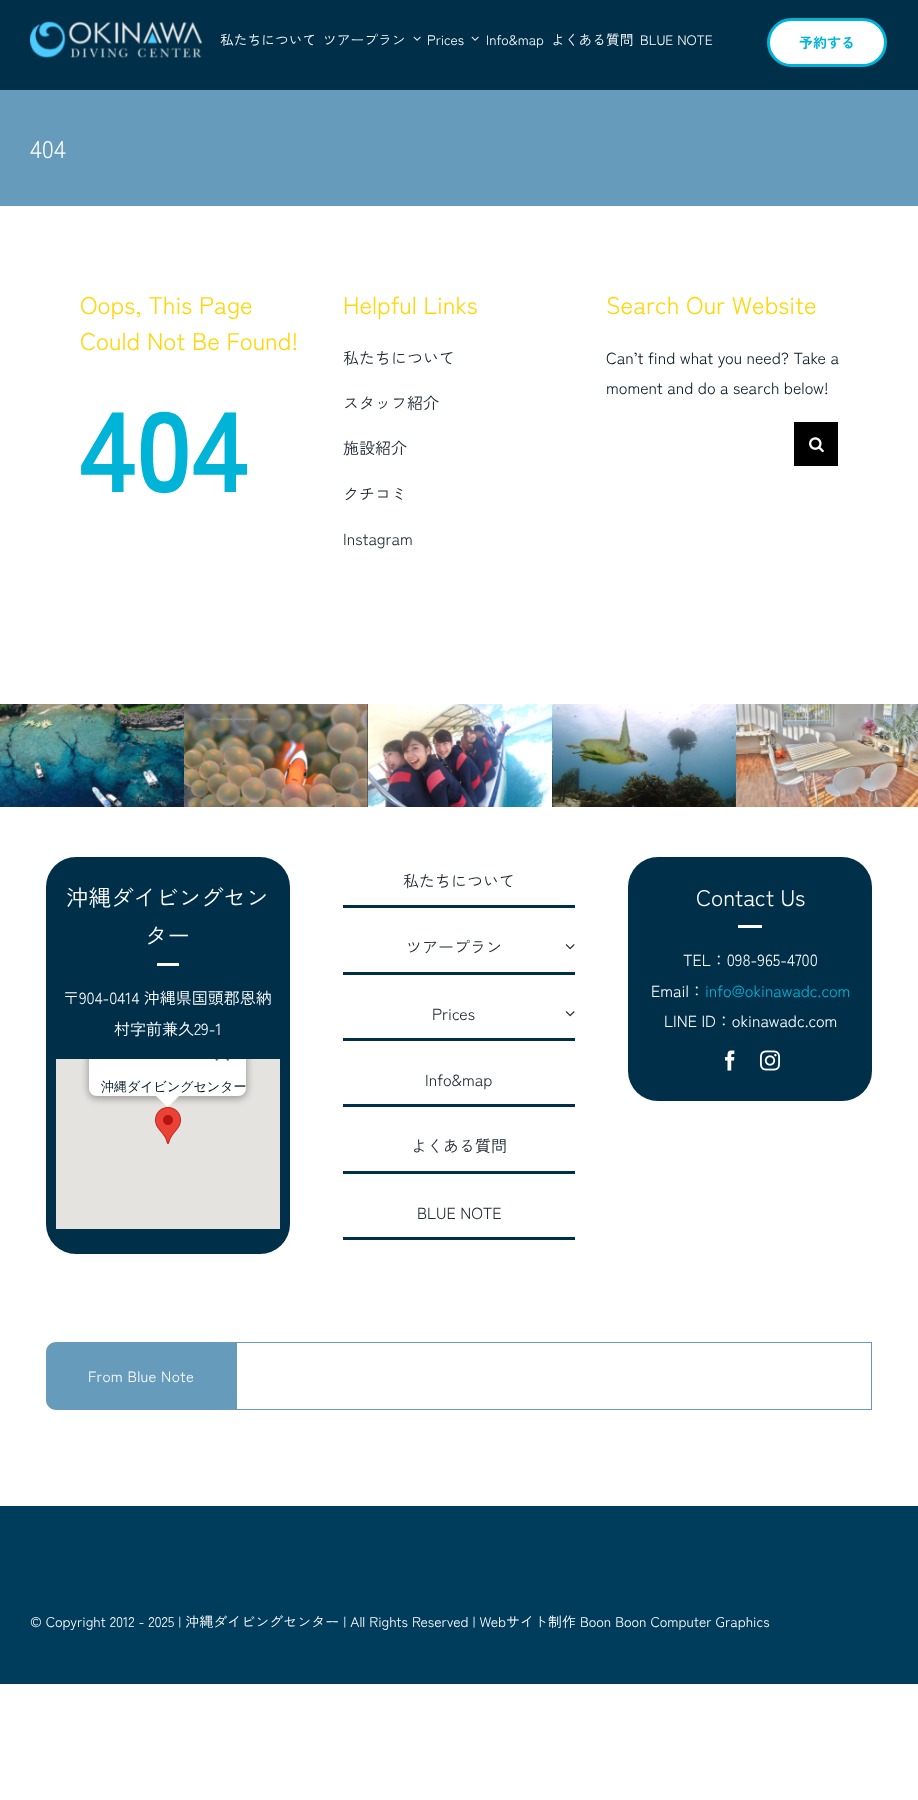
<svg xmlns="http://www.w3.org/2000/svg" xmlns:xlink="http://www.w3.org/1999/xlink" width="918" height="1800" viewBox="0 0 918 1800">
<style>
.cls-1{font:13.75px Zen Kaku Gothic New;fill:#ffffff}
.cls-2{font:300 14px 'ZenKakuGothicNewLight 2';fill:#00b4d8}
.cls-3{font:300 24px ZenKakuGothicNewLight;fill:#ffffff}
.cls-4{font:300 24px ZenKakuGothicNewLight;fill:#ffd60a}
.cls-5{font:bold 113px Zen Kaku Gothic New;fill:#00b4d8}
.cls-6{font:16px Zen Kaku Gothic New;fill:#212934}
.cls-7{font:16px Zen Kaku Gothic New;fill:#051923}
.cls-8{font:300 22.5px ZenKakuGothicNewLight;fill:#ffffff}
.cls-9{font:16px Zen Kaku Gothic New;fill:#ffffff}
.cls-10{font:500 13px WenQuanYi Zen Hei;fill:#051923}
.cls-11{font:22.5px Zen Kaku Gothic New;fill:#ffffff}
.cls-12{font:16px Zen Kaku Gothic New;fill:#00b4d8}
.cls-13{font:15px Zen Kaku Gothic New;letter-spacing:0.25px;fill:#ffffff}
.cls-14{font:14px Zen Kaku Gothic New;fill:#ffffff}
</style>
<defs>
<clipPath id="clip1"><rect x="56" y="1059" width="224" height="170"/></clipPath>
</defs>
<rect width="100%" height="100%" fill="#ffffff"/>
<rect fill="#003049" x="0" y="0" width="918" height="90"/>
<image xlink:href="image0.png" x="30" y="21" width="172" height="37"/>
<image xlink:href="image1.png" x="413" y="36" width="8" height="5"/>
<image xlink:href="image1.png" x="471" y="36" width="8" height="5"/>
<rect fill="#ffffff" stroke="#00b4d8" stroke-width="3" x="768.5" y="19.5" width="117" height="46" rx="23"/>
<rect fill="#669bbc" x="0" y="90" width="918" height="116"/>
<rect fill="#000000" x="794" y="422" width="44" height="44"/>
<image xlink:href="image2.png" x="809" y="437" width="15" height="16"/>
<image xlink:href="image3.png" x="0" y="704" width="184" height="103"/>
<image xlink:href="image4.png" x="184" y="704" width="184" height="103"/>
<image xlink:href="image5.png" x="368" y="704" width="184" height="103"/>
<image xlink:href="image6.png" x="552" y="704" width="184" height="103"/>
<image xlink:href="image7.png" x="736" y="704" width="182" height="103"/>
<rect fill="#003049" x="46" y="857" width="244" height="397" rx="30"/>
<rect fill="#ffffff" x="157" y="963" width="22" height="3"/>
<rect fill="#e5e3df" x="56" y="1059" width="224" height="170"/>
<image xlink:href="image9.png" x="155" y="1107" width="26" height="37"/>
<g clip-path="url(#clip1)">
<rect fill="#000000" fill-opacity="0.3" filter="blur(3.5px)" x="88" y="1031" width="159" height="68" rx="9"/>
</g>
<path fill="#ffffff" d="M89 1059H246V1088C246 1092.5 242.5 1096 238 1096H97C92.5 1096 89 1092.5 89 1088Z"/>
<image xlink:href="image8.png" x="215" y="1059" width="15" height="2"/>
<path fill="#ffffff" d="M168 1107L180 1095H156V1096L167.5 1107Z"/>
<rect fill="#003049" x="343" y="905" width="232" height="3"/>
<image xlink:href="image10.png" x="565" y="944" width="10" height="6"/>
<rect fill="#003049" x="343" y="972" width="232" height="3"/>
<image xlink:href="image10.png" x="565" y="1011" width="10" height="6"/>
<rect fill="#003049" x="343" y="1038" width="232" height="3"/>
<rect fill="#003049" x="343" y="1104" width="232" height="3"/>
<rect fill="#003049" x="343" y="1171" width="232" height="3"/>
<rect fill="#003049" x="343" y="1237" width="232" height="3"/>
<rect fill="#003049" x="628" y="857" width="244" height="244" rx="30"/>
<rect fill="#ffffff" x="738" y="925" width="24" height="3"/>
<image xlink:href="image11.png" x="725" y="1050" width="10" height="21"/>
<image xlink:href="image12.png" x="760" y="1050" width="20" height="21"/>
<path fill="#669bbc" d="M56 1342H236V1410H56C50.5 1410 46 1405.5 46 1400V1352C46 1346.5 50.5 1342 56 1342Z"/>
<rect fill="none" stroke="#669bbc" x="236.5" y="1342.5" width="635" height="67"/>
<rect fill="#003c5c" x="0" y="1506" width="918" height="178"/>
<text class="cls-1" x="220" y="45">私たちについて</text>
<text class="cls-1" x="323" y="45">ツアープラン</text>
<text class="cls-1" x="427" y="45">Prices</text>
<text class="cls-1" x="486" y="45">Info&amp;map</text>
<text class="cls-1" x="551" y="45">よくある質問</text>
<text class="cls-1" x="640" y="45">BLUE NOTE</text>
<text class="cls-2" x="799" y="48">予約する</text>
<text class="cls-3" x="30" y="158">404</text>
<text class="cls-4"><tspan x="80" y="314">Oops, This Page</tspan><tspan x="80" y="350">Could Not Be Found!</tspan></text>
<text class="cls-5" x="80" y="492">404</text>
<text class="cls-4" x="343" y="314">Helpful Links</text>
<text class="cls-6" x="343" y="364">私たちについて</text>
<text class="cls-6" x="343" y="409">スタッフ紹介</text>
<text class="cls-6" x="343" y="454">施設紹介</text>
<text class="cls-6" x="343" y="500">クチコミ</text>
<text class="cls-6" x="343" y="545">Instagram</text>
<text class="cls-4" x="606" y="314">Search Our Website</text>
<text class="cls-7"><tspan x="606" y="364">Can’t find what you need? Take a</tspan><tspan x="606" y="394">moment and do a search below!</tspan></text>
<text class="cls-8" x="66" y="906">沖縄ダイビングセン</text>
<text class="cls-8" x="145" y="944">ター</text>
<text class="cls-9" x="63" y="1004">〒904-0414 沖縄県国頭郡恩納</text>
<text class="cls-9" x="114" y="1035">村字前兼久29-1</text>
<text class="cls-10" x="101" y="1091">沖縄ダイビングセンター</text>
<text class="cls-6" x="403" y="887">私たちについて</text>
<text class="cls-6" x="406" y="953">ツアープラン</text>
<text class="cls-6" x="432" y="1020">Prices</text>
<text class="cls-6" x="425" y="1086">Info&amp;map</text>
<text class="cls-6" x="411" y="1152">よくある質問</text>
<text class="cls-6" x="417" y="1219">BLUE NOTE</text>
<text class="cls-11" x="696" y="906">Contact Us</text>
<text class="cls-9" x="683" y="966">TEL：098-965-4700</text>
<text class="cls-9" x="651" y="997">Email：</text>
<text class="cls-12" x="705" y="997">info@okinawadc.com</text>
<text class="cls-9" x="664" y="1027">LINE ID：okinawadc.com</text>
<text class="cls-13" x="88" y="1382">From Blue Note</text>
<text class="cls-14" x="30" y="1627">© Copyright 2012 - 2025 | 沖縄ダイビングセンター | All Rights Reserved | Webサイト制作 Boon Boon Computer Graphics</text>
</svg>
